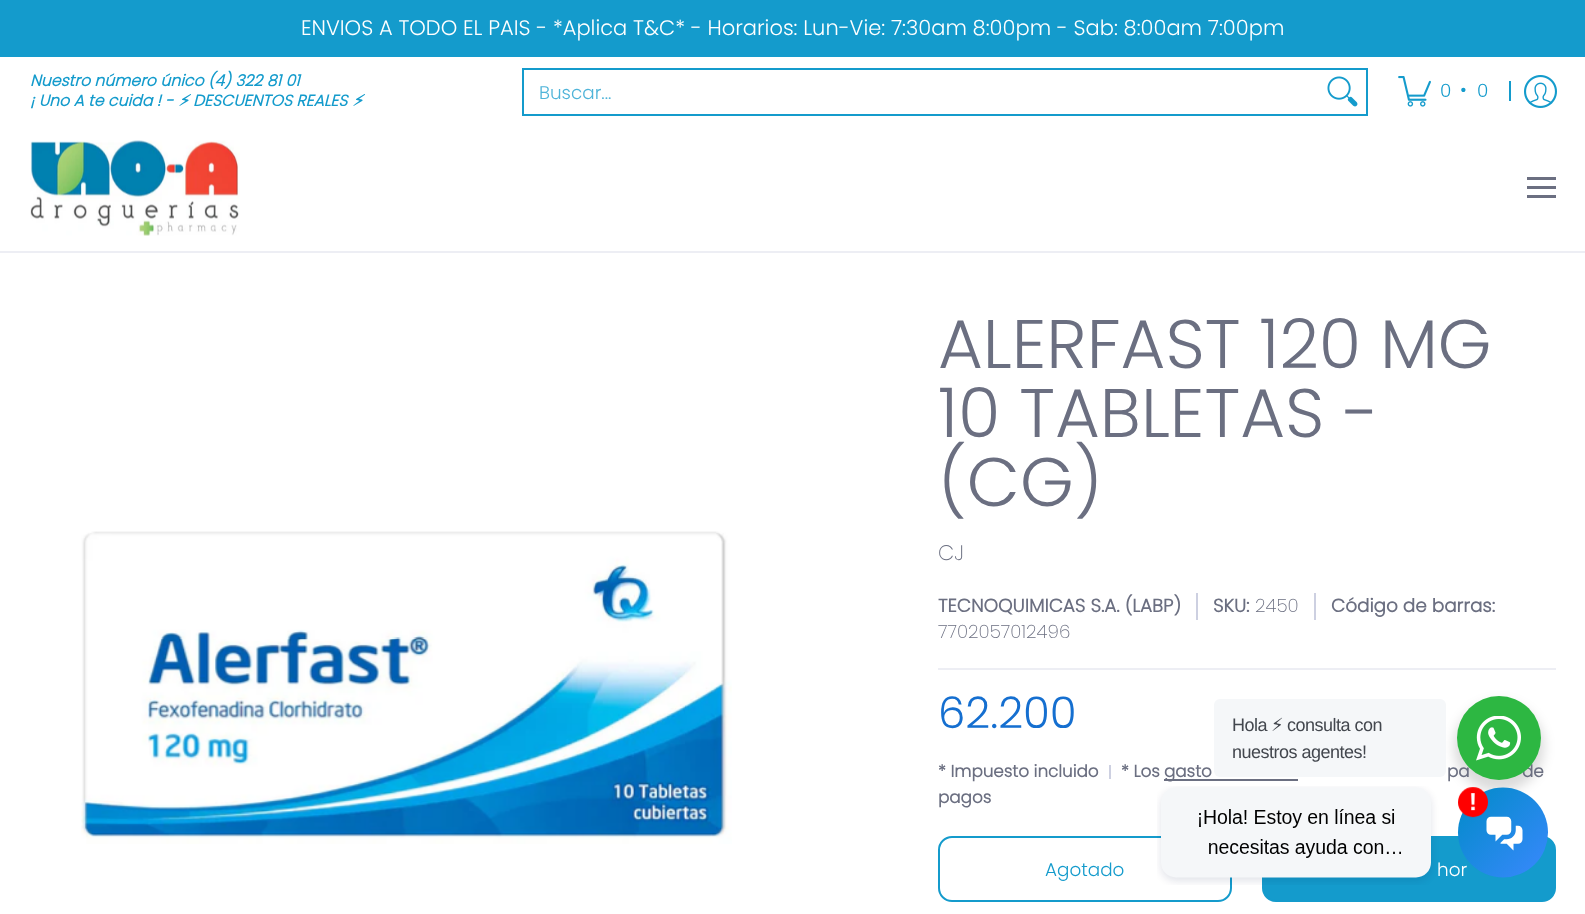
<svg xmlns="http://www.w3.org/2000/svg" xmlns:xlink="http://www.w3.org/1999/xlink" width="1585" height="914" viewBox="0 0 1585 914">
<style>
.cls-1{font:300 21px Poppins;fill:#ffffff}
.cls-2{font:italic bold 15.75px Poppins;fill:#149bcc}
.cls-3{font:italic bold 15.75px DejaVu Sans;fill:#149bcc}
.cls-4{font:300 18.4px Poppins;fill:#4fb4d9}
.cls-5{font:300 18.4px Poppins;fill:#149bcc}
.cls-6{font:300 68.75px Poppins;fill:#6b6f81}
.cls-7{font:300 21px 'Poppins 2';fill:#6b6f81}
.cls-8{font:bold 18.4px Poppins;fill:#6b6f81}
.cls-9{font:300 18.4px 'Poppins 2';fill:#6b6f81}
.cls-10{font:300 43.5px Poppins;fill:#156fd0}
.cls-11{font:bold 16.75px Poppins;fill:#6b6f81}
.cls-12{font:300 18.4px Poppins;fill:#ffffff}
.cls-13{font:18px Liberation Sans;letter-spacing:-0.5px;fill:#43474e}
.cls-14{font:18px DejaVu Sans;letter-spacing:-0.5px;fill:#43474e}
</style>
<rect width="100%" height="100%" fill="#ffffff"/>
<rect fill="#149bcc" x="0" y="0" width="1585" height="57"/>
<rect fill="none" stroke="#149bcc" stroke-width="2" x="523" y="69" width="844" height="46"/>
<image xlink:href="image0.png" x="1327" y="76" width="31" height="31"/>
<image xlink:href="image1.png" x="1398" y="76" width="33" height="31"/>
<rect fill="#149bcc" x="1509" y="81" width="2" height="20"/>
<image xlink:href="image2.png" x="1524" y="75" width="33" height="33"/>
<rect fill="#edeef4" x="0" y="251" width="1585" height="2"/>
<image xlink:href="image3.png" x="30" y="140" width="210" height="96"/>
<rect fill="#6b6f81" x="1527" y="177" width="29" height="3"/>
<rect fill="#6b6f81" x="1527" y="195" width="29" height="3"/>
<rect fill="#6b6f81" x="1527" y="186" width="29" height="3"/>
<image xlink:href="image4.png" x="81" y="531" width="651" height="313"/>
<rect fill="#edeef4" x="938" y="668" width="618" height="2"/>
<rect fill="#cdd0e1" x="1196" y="593" width="2" height="27"/>
<rect fill="#cdd0e1" x="1314" y="593" width="2" height="27"/>
<rect fill="#cdd0e1" x="1109" y="765" width="2" height="14"/>
<rect fill="#6b6f81" x="1164" y="779" width="134" height="2"/>
<rect fill="none" stroke="#149bcc" stroke-width="2" x="939" y="837" width="292" height="64" rx="13"/>
<rect fill="#149bcc" stroke="#149bcc" stroke-width="2" x="1263" y="837" width="292" height="64" rx="13"/>
<rect fill="#000000" fill-opacity="0.14" filter="blur(6px)" x="1454" y="702" width="90" height="90" rx="45"/>
<rect fill="#f5f7f9" x="1214" y="699" width="232" height="78" rx="6"/>
<text class="cls-1" x="301" y="35">ENVIOS A TODO EL PAIS - *Aplica T&amp;C* - Horarios: Lun-Vie: 7:30am 8:00pm - Sab: 8:00am 7:00pm</text>
<text class="cls-2"><tspan x="30" y="86">Nuestro número único (4) 322 81 01</tspan><tspan x="30" y="106">¡ Uno A te cuida ! -</tspan></text>
<text class="cls-3" x="178" y="106">⚡︎</text>
<text class="cls-2" x="193" y="106">DESCUENTOS REALES</text>
<text class="cls-3" x="352" y="106">⚡︎</text>
<text class="cls-4" x="539" y="99">Buscar...</text>
<text class="cls-5" x="1440" y="97">0</text>
<text class="cls-5" x="1460" y="96">•</text>
<text class="cls-5" x="1477" y="97">0</text>
<text class="cls-6"><tspan x="938" y="368">ALERFAST 120 MG</tspan><tspan x="938" y="437">10 TABLETAS -</tspan><tspan x="938" y="506">(CG)</tspan></text>
<text class="cls-7" x="938" y="560">CJ</text>
<text class="cls-8" x="938" y="612">TECNOQUIMICAS S.A. (LABP)</text>
<text class="cls-8" x="1213" y="612">SKU:</text>
<text class="cls-9" x="1255" y="612">2450</text>
<text class="cls-8" x="1331" y="612">Código de barras:</text>
<text class="cls-9" x="938" y="638">7702057012496</text>
<text class="cls-10" x="938" y="728">62.200</text>
<text class="cls-11" x="938" y="777">* Impuesto incluido</text>
<text class="cls-11" x="1121" y="777">* Los</text>
<text class="cls-11" x="1164" y="777">gasto</text>
<text class="cls-11" x="1447" y="777">pa</text>
<text class="cls-11" x="1522" y="777">de</text>
<text class="cls-11" x="938" y="803">pagos</text>
<text class="cls-5" x="1045" y="876">Agotado</text>
<text class="cls-12" x="1437" y="876">hor</text>
<text class="cls-13" x="1232" y="731">Hola</text>
<text class="cls-14" x="1271" y="731">⚡︎</text>
<text class="cls-13" x="1287" y="731">consulta con</text>
<text class="cls-13" x="1232" y="758">nuestros agentes!</text>
<circle fill="#2db742" cx="1499" cy="738" r="42"/>
<image xlink:href="image5.png" x="1476" y="716" width="45" height="45"/>
<image xlink:href="image6.png" x="1157" y="786" width="391" height="99"/>
</svg>
